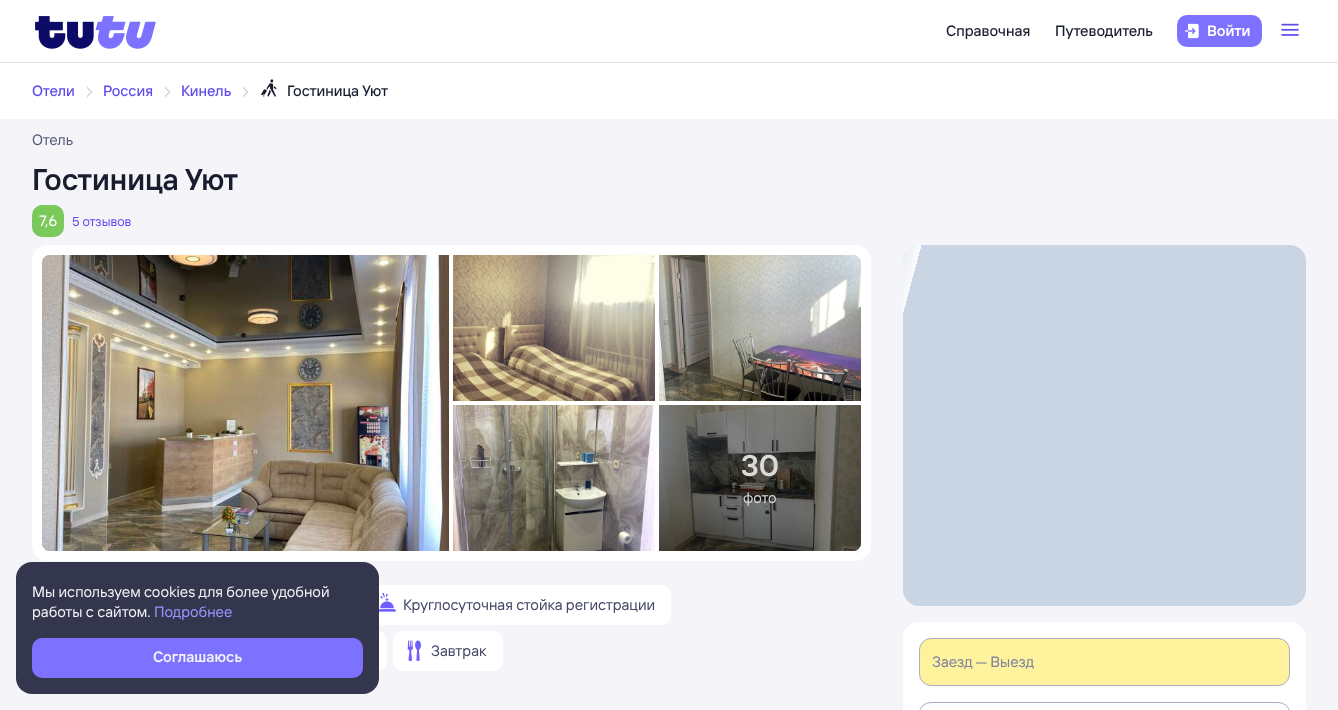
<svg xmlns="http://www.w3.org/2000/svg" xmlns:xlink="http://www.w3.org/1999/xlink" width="1338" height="710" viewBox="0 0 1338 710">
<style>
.cls-1{font:500 15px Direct;fill:#181c2d}
.cls-2{font:600 15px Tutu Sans;fill:#ffffff}
.cls-3{font:500 15px Direct;fill:#5f4aed}
.cls-4{font:15px Tutu Sans;fill:#555a7a}
.cls-5{font:600 30px Tutu Sans;fill:#181c2d}
.cls-6{font:15px Tutu Sans;fill:#ffffff}
.cls-7{font:13px Tutu Sans;fill:#5f4aed}
.cls-8{font:600 30px Tutu Sans;fill:#dadad9}
.cls-9{font:15px Tutu Sans;fill:#dadad9}
.cls-10{font:15px Tutu Sans;fill:#434765}
.cls-11{font:15px Tutu Sans;fill:#7d82a0}
.cls-12{font:15px Tutu Sans;fill:#f2f2f7}
.cls-13{font:15px Tutu Sans;fill:#9996ff}
.cls-14{font:600 15px Tutu Sans;fill:#f2f2f7}
</style>
<defs>
<linearGradient id="g1" gradientUnits="userSpaceOnUse" x1="690" y1="363" x2="1156" y2="488"><stop offset="0.3" stop-color="#ffffff" stop-opacity="0"/><stop offset="0.4" stop-color="#ffffff" stop-opacity="0.9"/><stop offset="0.4" stop-color="#ffffff" stop-opacity="0"/></linearGradient>
</defs>
<rect width="100%" height="100%" fill="#f5f5f9"/>
<rect fill="#ffffff" x="0" y="0" width="1338" height="62"/>
<rect fill="#dddfea" x="0" y="62" width="1338" height="1"/>
<image xlink:href="image0.png" x="35" y="16" width="121" height="33"/>
<rect fill="#7d71ff" x="1177" y="15" width="85" height="32" rx="10"/>
<image xlink:href="image1.png" x="1185" y="23" width="14" height="16"/>
<image xlink:href="image2.png" x="1281" y="23" width="18" height="13"/>
<rect fill="#ffffff" x="0" y="63" width="1338" height="56"/>
<image xlink:href="image3.png" x="87" y="86" width="6" height="12"/>
<image xlink:href="image3.png" x="165" y="86" width="6" height="12"/>
<image xlink:href="image3.png" x="243" y="86" width="6" height="12"/>
<image xlink:href="image4.png" x="261" y="79" width="16" height="18"/>
<rect fill="#7bc95a" x="32" y="205" width="32" height="32" rx="10"/>
<rect fill="#ffffff" x="32" y="245" width="839" height="316" rx="16"/>
<path fill="#c3cfdf" d="M50 255H449V551H50C45.5 551 42 547.5 42 543V263C42 258.5 45.5 255 50 255Z"/>
<image xlink:href="image5.png" x="42" y="255" width="407" height="296"/>
<image xlink:href="image6.png" x="453" y="255" width="202" height="146"/>
<image xlink:href="image7.png" x="659" y="255" width="202" height="146"/>
<image xlink:href="image8.png" x="453" y="405" width="202" height="146"/>
<path fill="#c3cfdf" d="M659 405H861V543C861 547.5 857.5 551 853 551H659Z"/>
<image xlink:href="image9.png" x="659" y="405" width="202" height="146"/>
<path fill="#000000" fill-opacity="0.5" d="M659 405H861V543C861 547.5 857.5 551 853 551H659Z"/>
<rect fill="#ffffff" x="365" y="585" width="306" height="40" rx="10"/>
<image xlink:href="image10.png" x="379" y="593" width="17" height="19"/>
<rect fill="#ffffff" x="240" y="631" width="147" height="40" rx="10"/>
<rect fill="#ffffff" x="393" y="631" width="110" height="40" rx="10"/>
<image xlink:href="image11.png" x="407" y="640" width="14" height="22"/>
<rect fill="#cad5e3" x="903" y="245" width="403" height="361" rx="16"/>
<path fill="url(#g1)" d="M919 245H1124V606H919C910 606 903 599 903 590V261C903 252 910 245 919 245Z"/>
<rect fill="#ffffff" x="903" y="622" width="403" height="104" rx="16"/>
<rect fill="#fff29c" stroke="#abadc7" x="919.5" y="638.5" width="370" height="47" rx="11.5"/>
<rect fill="none" stroke="#abadc7" x="919.5" y="702.5" width="370" height="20" rx="11.5"/>
<rect fill="#33364d" x="16" y="562" width="363" height="132" rx="16"/>
<rect fill="#7d71ff" x="32" y="638" width="331" height="40" rx="10"/>
<text class="cls-1" x="946" y="36">Справочная</text>
<text class="cls-1" x="1055" y="36">Путеводитель</text>
<text class="cls-2" x="1207" y="36">Войти</text>
<text class="cls-3" x="32" y="96">Отели</text>
<text class="cls-3" x="103" y="96">Россия</text>
<text class="cls-3" x="181" y="96">Кинель</text>
<text class="cls-1" x="287" y="96">Гостиница Уют</text>
<text class="cls-4" x="32" y="145">Отель</text>
<text class="cls-5" x="32" y="190">Гостиница Уют</text>
<text class="cls-6" x="39" y="226">7,6</text>
<text class="cls-7" x="72" y="226">5 отзывов</text>
<text class="cls-8" x="741" y="476">30</text>
<text class="cls-9" x="743" y="503">фото</text>
<text class="cls-10" x="403" y="610">Круглосуточная стойка регистрации</text>
<text class="cls-10" x="431" y="656">Завтрак</text>
<text class="cls-11" x="932" y="667">Заезд — Выезд</text>
<text class="cls-12"><tspan x="32" y="597">Мы используем cookies для более удобной</tspan><tspan x="32" y="617">работы с сайтом.</tspan></text>
<text class="cls-13" x="154" y="617">Подробнее</text>
<text class="cls-14" x="153" y="662">Соглашаюсь</text>
</svg>
